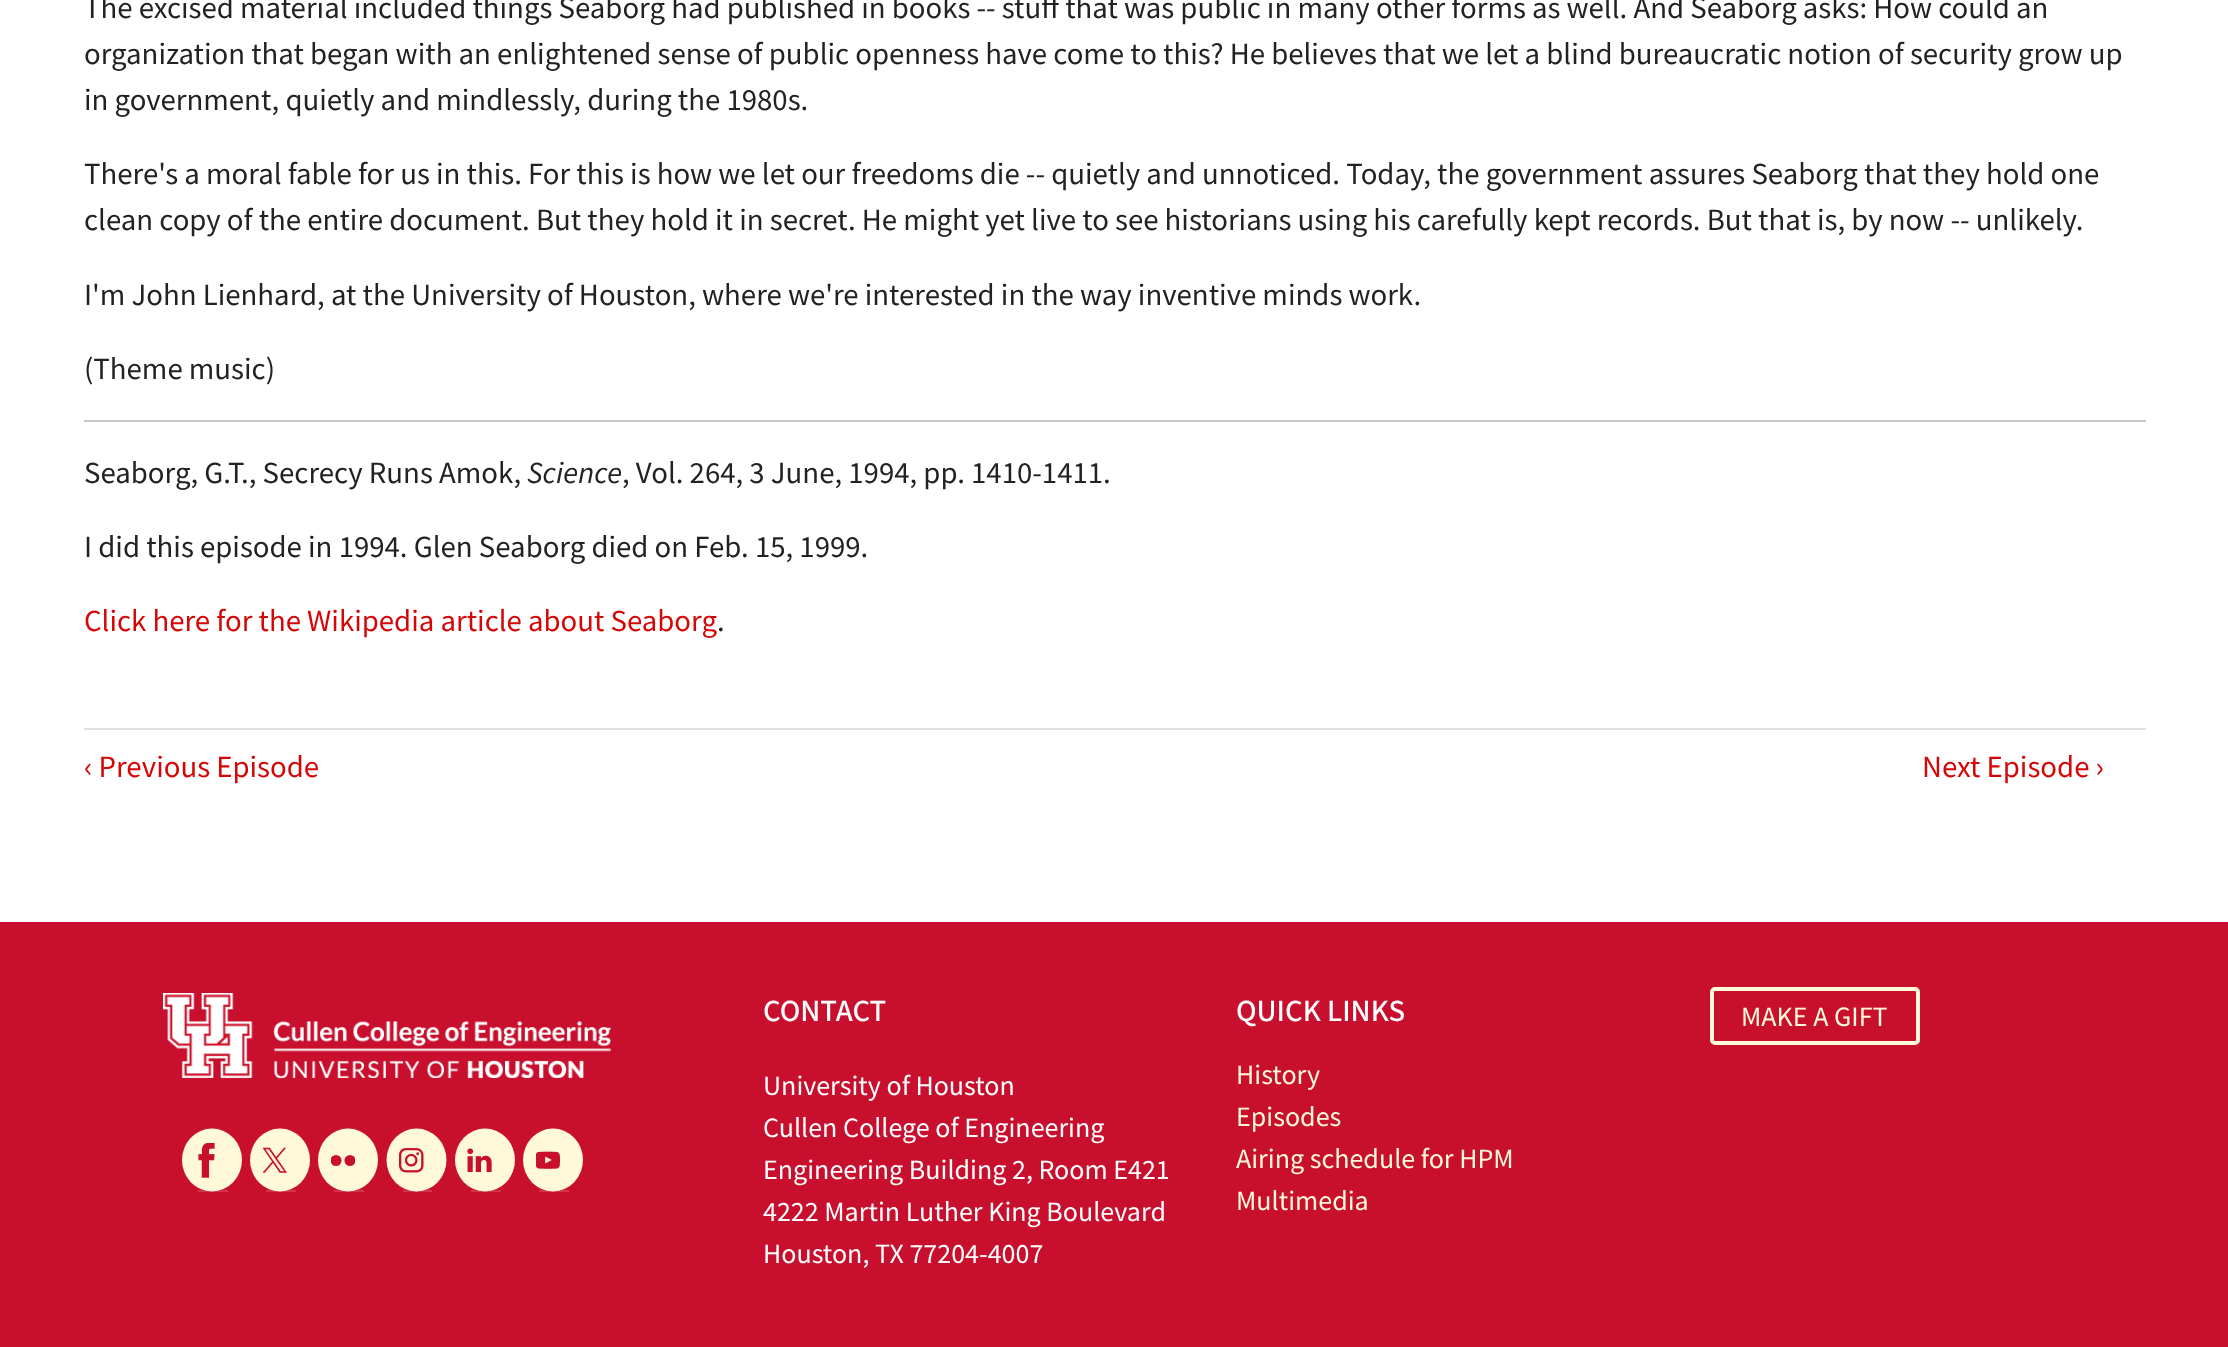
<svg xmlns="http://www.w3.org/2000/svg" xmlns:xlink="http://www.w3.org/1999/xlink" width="2228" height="1347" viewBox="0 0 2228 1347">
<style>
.cls-1{font:30.8px Source Sans Pro;fill:#222222}
.cls-2{font:italic 30.8px Source Sans Pro;fill:#222222}
.cls-3{font:30.8px Source Sans Pro;fill:#d60606}
.cls-4{font:500 30.8px 'Source Sans 3';fill:#ffffff}
.cls-5{font:28px Source Sans Pro;fill:#ffffff}
.cls-6{font:28px Source Sans Pro;fill:#fff9d9}
</style>
<defs>
<clipPath id="clip1"><rect x="331" y="1143" width="24" height="35"/></clipPath>
</defs>
<rect width="100%" height="100%" fill="#ffffff"/>
<rect fill="#c8c8c8" x="84" y="420" width="2062" height="2"/>
<rect fill="#dee2e6" x="84" y="728" width="2062" height="2"/>
<rect fill="#c8102e" x="0" y="922" width="2228" height="425"/>
<image xlink:href="image0.png" x="163" y="993" width="448" height="85"/>
<ellipse fill="#fff9d9" cx="212" cy="1160" rx="30" ry="31.5"/>
<rect fill="#ffffff" fill-opacity="0.15" x="198" y="1190" width="30" height="2"/>
<image xlink:href="image1.png" x="198" y="1143" width="17" height="35"/>
<ellipse fill="#fff9d9" cx="280" cy="1160" rx="30" ry="31.5"/>
<rect fill="#ffffff" fill-opacity="0.15" x="266" y="1190" width="30" height="2"/>
<image xlink:href="image2.png" x="263" y="1147" width="24" height="26"/>
<ellipse fill="#fff9d9" cx="348" cy="1160" rx="30" ry="31.5"/>
<rect fill="#ffffff" fill-opacity="0.15" x="334" y="1190" width="30" height="2"/>
<g clip-path="url(#clip1)">
<circle fill="#c8102e" cx="336" cy="1160.5" r="5.5"/>
<circle fill="#c8102e" cx="350" cy="1160.5" r="5.5"/>
</g>
<ellipse fill="#fff9d9" cx="416.5" cy="1160" rx="30" ry="31.5"/>
<rect fill="#ffffff" fill-opacity="0.15" x="403" y="1190" width="29" height="2"/>
<image xlink:href="image3.png" x="399" y="1148" width="25" height="25"/>
<ellipse fill="#fff9d9" cx="485" cy="1160" rx="30" ry="31.5"/>
<rect fill="#ffffff" fill-opacity="0.15" x="471" y="1190" width="30" height="2"/>
<image xlink:href="image4.png" x="467" y="1148" width="25" height="24"/>
<ellipse fill="#fff9d9" cx="553" cy="1160" rx="30" ry="31.5"/>
<rect fill="#ffffff" fill-opacity="0.15" x="539" y="1190" width="30" height="2"/>
<image xlink:href="image5.png" x="536" y="1151" width="24" height="18"/>
<rect fill="none" stroke="#fff9d9" stroke-width="4" x="1712" y="989" width="206" height="54" rx="3"/>
<text class="cls-1"><tspan x="84" y="18">The excised material included things Seaborg had published in books -- stuff that was public in many other forms as well. And Seaborg asks: How could an</tspan><tspan x="84" y="64">organization that began with an enlightened sense of public openness have come to this? He believes that we let a blind bureaucratic notion of security grow up</tspan><tspan x="84" y="110">in government, quietly and mindlessly, during the 1980s.</tspan></text>
<text class="cls-1"><tspan x="84" y="184">There's a moral fable for us in this. For this is how we let our freedoms die -- quietly and unnoticed. Today, the government assures Seaborg that they hold one</tspan><tspan x="84" y="230">clean copy of the entire document. But they hold it in secret. He might yet live to see historians using his carefully kept records. But that is, by now -- unlikely.</tspan></text>
<text class="cls-1" x="84" y="305">I'm John Lienhard, at the University of Houston, where we're interested in the way inventive minds work.</text>
<text class="cls-1" x="84" y="379">(Theme music)</text>
<text class="cls-1" x="84" y="483">Seaborg, G.T., Secrecy Runs Amok,</text>
<text class="cls-2" x="527" y="483">Science</text>
<text class="cls-1" x="622" y="483">, Vol. 264, 3 June, 1994, pp. 1410-1411.</text>
<text class="cls-1" x="84" y="557">I did this episode in 1994. Glen Seaborg died on Feb. 15, 1999.</text>
<text class="cls-3" x="84" y="631">Click here for the Wikipedia article about Seaborg</text>
<text class="cls-1" x="717" y="631">.</text>
<text class="cls-3" x="84" y="777">‹ Previous Episode</text>
<text class="cls-3" x="1922" y="777">Next Episode ›</text>
<text class="cls-4" x="763" y="1021">CONTACT</text>
<text class="cls-5"><tspan x="763" y="1095">University of Houston</tspan><tspan x="763" y="1137">Cullen College of Engineering</tspan><tspan x="763" y="1179">Engineering Building 2, Room E421</tspan><tspan x="763" y="1221">4222 Martin Luther King Boulevard</tspan><tspan x="763" y="1263">Houston, TX 77204-4007</tspan></text>
<text class="cls-4" x="1236" y="1021">QUICK LINKS</text>
<text class="cls-6"><tspan x="1236" y="1084">History</tspan><tspan x="1236" y="1126">Episodes</tspan><tspan x="1236" y="1168">Airing schedule for HPM</tspan><tspan x="1236" y="1210">Multimedia</tspan></text>
<text class="cls-6" x="1741" y="1026">MAKE A GIFT</text>
</svg>
